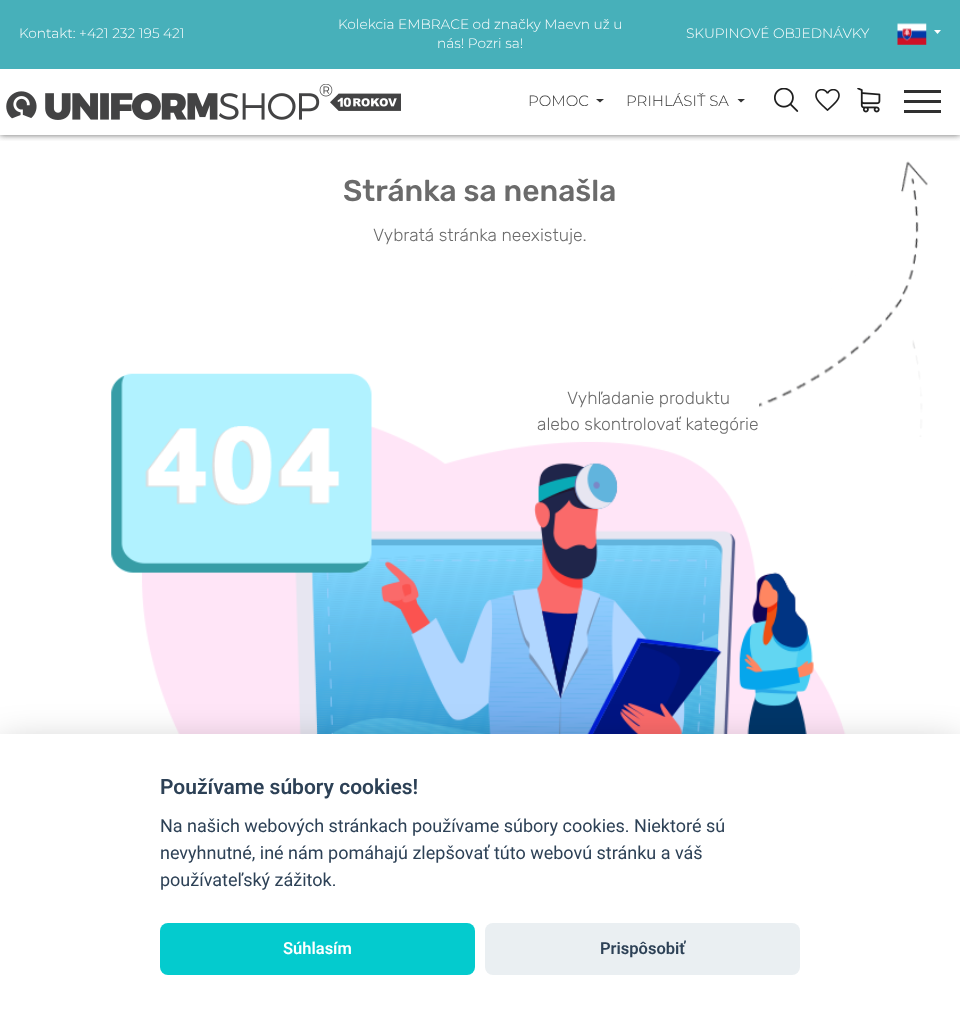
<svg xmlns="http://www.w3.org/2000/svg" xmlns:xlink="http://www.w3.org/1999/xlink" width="960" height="1014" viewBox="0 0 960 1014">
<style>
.cls-1{font:300 13.75px Montserrat;fill:#ffffff}
.cls-2{font:300 15px Montserrat;fill:#333333}
.cls-3{font:500 30px Rubik;fill:#6b6b6b}
.cls-4{font:300 17.5px Rubik;fill:#6b6b6b}
.cls-5{font:600 21px Roboto;fill:#2d4156}
.cls-6{font:18px Roboto;fill:#2d4156}
.cls-7{font:600 16.5px Roboto;fill:#ffffff}
.cls-8{font:600 16.5px Roboto;fill:#2d4156}
</style>
<defs>
<clipPath id="clip1"><rect x="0" y="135" width="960" height="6"/></clipPath>
</defs>
<rect width="100%" height="100%" fill="#ffffff"/>
<g clip-path="url(#clip1)">
<rect fill="#666666" filter="blur(3px)" x="0" y="0" width="960" height="135"/>
</g>
<rect fill="#47b0ba" x="0" y="0" width="960" height="69"/>
<image xlink:href="image0.png" x="897" y="23" width="30" height="22"/>
<path fill="#ffffff" d="M934 30H941L937.5 34Z"/>
<image xlink:href="image1.png" x="6" y="84" width="395" height="36"/>
<path fill="#333333" d="M596 99H604L600 102.5Z"/>
<path fill="#333333" d="M737.5 99H745L741 102.5Z"/>
<image xlink:href="image2.png" x="774" y="88" width="25" height="24"/>
<image xlink:href="image3.png" x="815" y="89" width="25" height="22"/>
<image xlink:href="image4.png" x="857" y="88" width="24" height="25"/>
<rect fill="#303030" x="904" y="90" width="37" height="3"/>
<rect fill="#303030" x="904" y="100" width="37" height="3"/>
<rect fill="#303030" x="904" y="110" width="37" height="3"/>
<image xlink:href="image5.png" x="111" y="373" width="735" height="361"/>
<image xlink:href="image6.png" x="759" y="161" width="169" height="276"/>
<rect fill="#020203" fill-opacity="0.28" filter="blur(19px)" x="0" y="746" width="960" height="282"/>
<rect fill="#ffffff" x="0" y="734" width="960" height="280"/>
<rect fill="#04cbce" x="160" y="923" width="315" height="52" rx="8"/>
<rect fill="#eaeff2" x="485" y="923" width="315" height="52" rx="8"/>
<text class="cls-1" x="19" y="38">Kontakt: +421 232 195 421</text>
<text class="cls-1" x="338" y="29">Kolekcia EMBRACE od značky Maevn už u</text>
<text class="cls-1" x="437" y="48">nás! Pozri sa!</text>
<text class="cls-1" x="686" y="38">SKUPINOVÉ OBJEDNÁVKY</text>
<text class="cls-2" x="528" y="106">POMOC</text>
<text class="cls-2" x="626" y="106">PRIHLÁSIŤ SA</text>
<text class="cls-3" x="343" y="201">Stránka sa nenašla</text>
<text class="cls-4" x="373" y="241">Vybratá stránka neexistuje.</text>
<text class="cls-4" x="567" y="404">Vyhľadanie produktu</text>
<text class="cls-4" x="537" y="430">alebo skontrolovať kategórie</text>
<text class="cls-5" x="160" y="794">Používame súbory cookies!</text>
<text class="cls-6"><tspan x="160" y="832">Na našich webových stránkach používame súbory cookies. Niektoré sú</tspan><tspan x="160" y="859">nevyhnutné, iné nám pomáhajú zlepšovať túto webovú stránku a váš</tspan><tspan x="160" y="886">používateľský zážitok.</tspan></text>
<text class="cls-7" x="283" y="954">Súhlasím</text>
<text class="cls-8" x="600" y="954">Prispôsobiť</text>
</svg>
